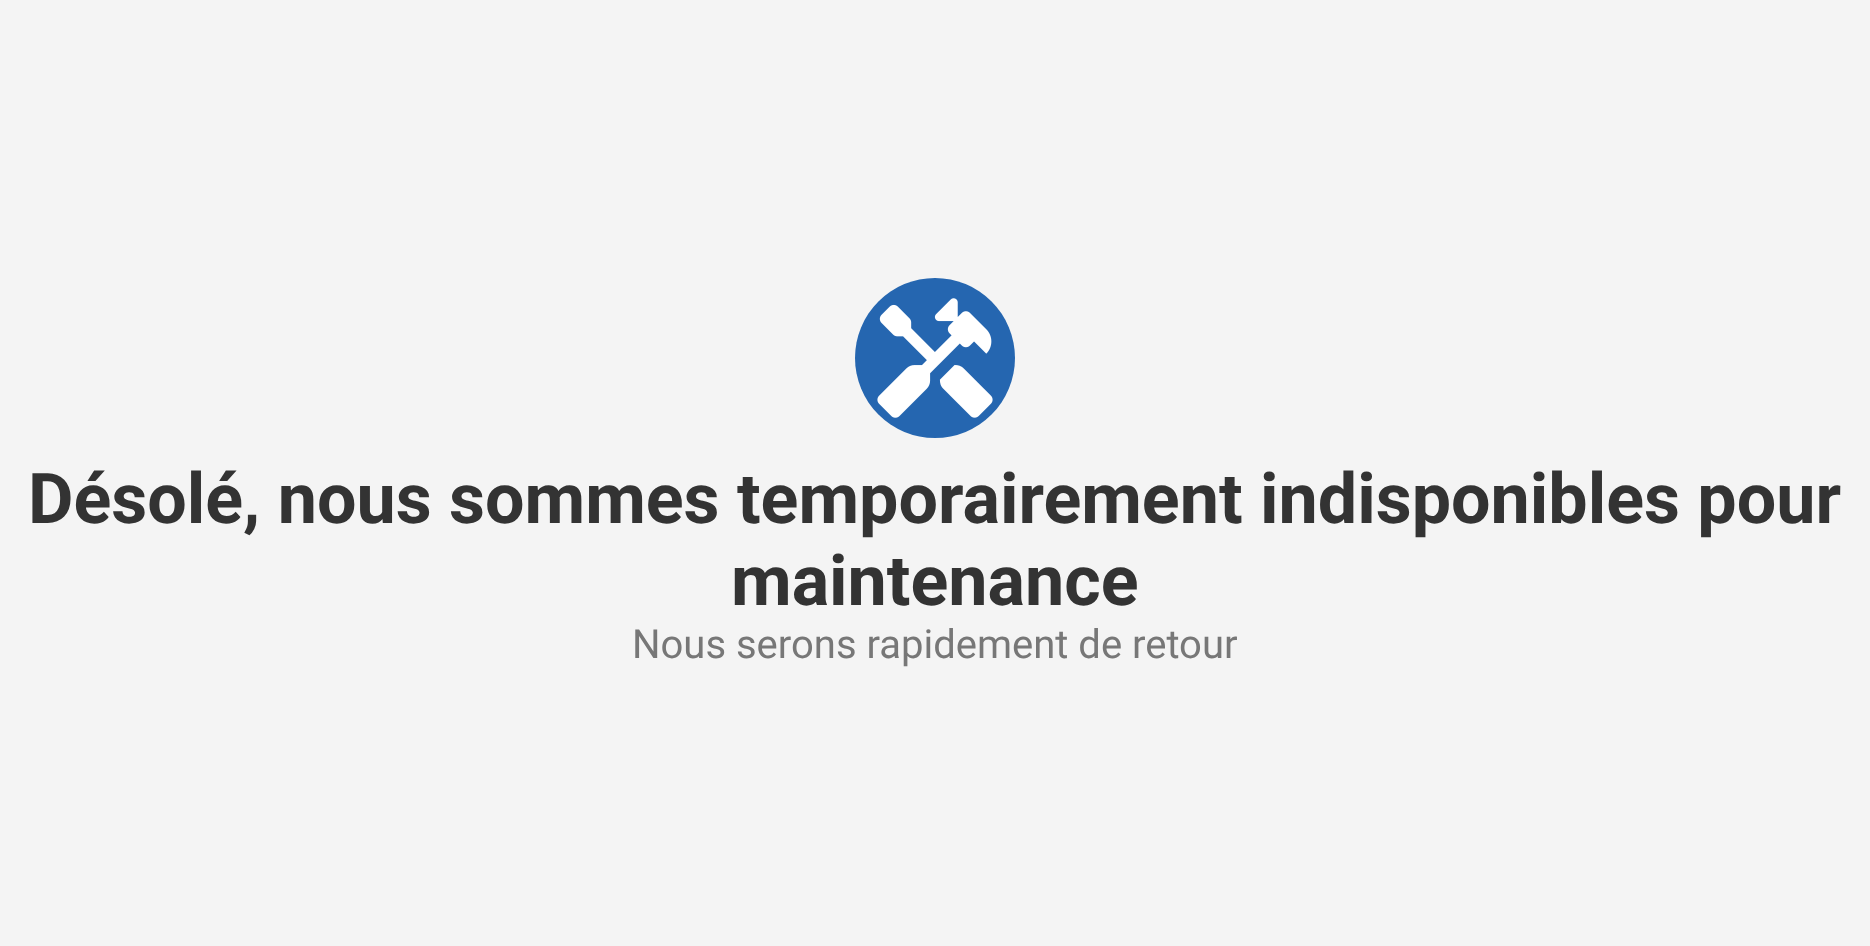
<svg xmlns="http://www.w3.org/2000/svg" xmlns:xlink="http://www.w3.org/1999/xlink" width="1870" height="946" viewBox="0 0 1870 946">
<style>
.cls-1{font:bold 70px Roboto;fill:#333333}
.cls-2{font:40px Roboto;fill:#777777}
</style>
<rect width="100%" height="100%" fill="#f4f4f4"/>
<circle fill="#2566b0" cx="935" cy="358" r="80"/>
<image xlink:href="image0.png" x="877" y="298" width="116" height="120"/>
<text class="cls-1" x="28" y="523">Désolé, nous sommes temporairement indisponibles pour</text>
<text class="cls-1" x="731" y="605">maintenance</text>
<text class="cls-2" x="632" y="658">Nous serons rapidement de retour</text>
</svg>
